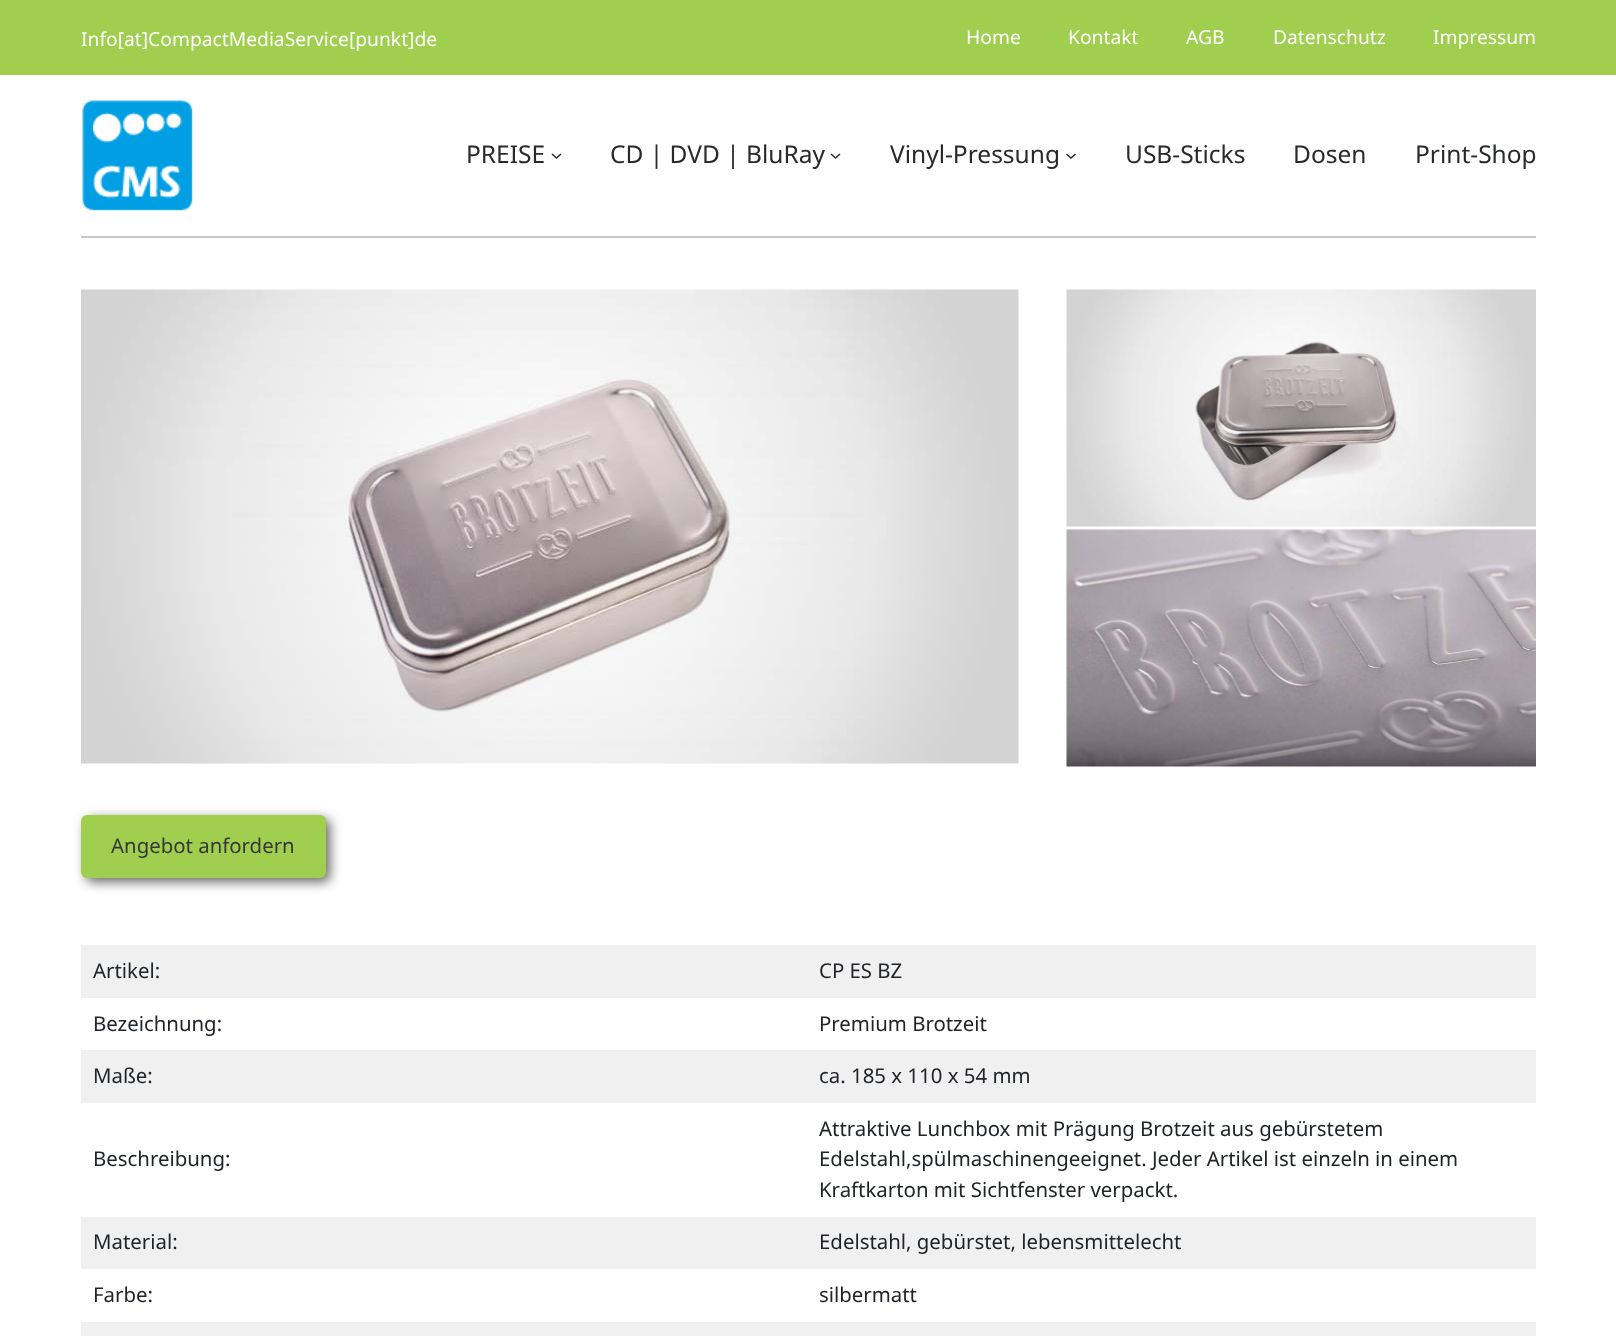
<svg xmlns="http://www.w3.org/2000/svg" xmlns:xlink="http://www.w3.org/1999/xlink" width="1616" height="1336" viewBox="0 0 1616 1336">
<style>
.cls-1{font:19.25px Noto Sans;fill:#ffffff}
.cls-2{font:24.5px Noto Sans;fill:#282a2b}
.cls-3{font:20.4px Noto Sans;fill:#363839}
.cls-4{font:20.4px Noto Sans;fill:#212529}
</style>
<rect width="100%" height="100%" fill="#ffffff"/>
<rect fill="#a0ce4e" x="0" y="0" width="1616" height="75"/>
<image xlink:href="image0.png" x="82" y="100" width="111" height="111"/>
<path fill="none" stroke="#282a2b" stroke-width="1.5" d="M552 154L556.5 158L561 154"/>
<path fill="none" stroke="#282a2b" stroke-width="1.5" d="M831 154L835.5 158L840 154"/>
<path fill="none" stroke="#282a2b" stroke-width="1.5" d="M1066.5 154L1071 158L1075.5 154"/>
<rect fill="#c8c9ca" x="81" y="236" width="1455" height="2"/>
<image xlink:href="image1.png" x="81" y="289" width="938" height="475"/>
<image xlink:href="image2.png" x="1066" y="289" width="470" height="238"/>
<image xlink:href="image3.png" x="1066" y="529" width="470" height="238"/>
<rect fill="#000000" fill-opacity="0.6" filter="blur(6px)" x="86" y="819" width="244" height="63" rx="6"/>
<rect fill="#a0ce4e" x="81" y="815" width="245" height="63" rx="6"/>
<rect fill="#f0f0f0" x="81" y="945" width="1455" height="53"/>
<rect fill="#f0f0f0" x="81" y="1050" width="1455" height="53"/>
<rect fill="#f0f0f0" x="81" y="1217" width="1455" height="52"/>
<rect fill="#f0f0f0" x="81" y="1322" width="1455" height="14"/>
<text class="cls-1" x="81" y="46">Info[at]CompactMediaService[punkt]de</text>
<text class="cls-1" x="966" y="44">Home</text>
<text class="cls-1" x="1068" y="44">Kontakt</text>
<text class="cls-1" x="1186" y="44">AGB</text>
<text class="cls-1" x="1273" y="44">Datenschutz</text>
<text class="cls-1" x="1433" y="44">Impressum</text>
<text class="cls-2" x="466" y="163">PREISE</text>
<text class="cls-2" x="610" y="163">CD | DVD | BluRay</text>
<text class="cls-2" x="890" y="163">Vinyl-Pressung</text>
<text class="cls-2" x="1125" y="163">USB-Sticks</text>
<text class="cls-2" x="1293" y="163">Dosen</text>
<text class="cls-2" x="1415" y="163">Print-Shop</text>
<text class="cls-3" x="111" y="853">Angebot anfordern</text>
<text class="cls-4" x="93" y="978">Artikel:</text>
<text class="cls-4" x="819" y="978">CP ES BZ</text>
<text class="cls-4" x="93" y="1031">Bezeichnung:</text>
<text class="cls-4" x="819" y="1031">Premium Brotzeit</text>
<text class="cls-4" x="93" y="1083">Maße:</text>
<text class="cls-4" x="819" y="1083">ca. 185 x 110 x 54 mm</text>
<text class="cls-4" x="93" y="1166">Beschreibung:</text>
<text class="cls-4"><tspan x="819" y="1136">Attraktive Lunchbox mit Prägung Brotzeit aus gebürstetem</tspan><tspan x="819" y="1166">Edelstahl,spülmaschinengeeignet. Jeder Artikel ist einzeln in einem</tspan><tspan x="819" y="1197">Kraftkarton mit Sichtfenster verpackt.</tspan></text>
<text class="cls-4" x="93" y="1249">Material:</text>
<text class="cls-4" x="819" y="1249">Edelstahl, gebürstet, lebensmittelecht</text>
<text class="cls-4" x="93" y="1302">Farbe:</text>
<text class="cls-4" x="819" y="1302">silbermatt</text>
</svg>
